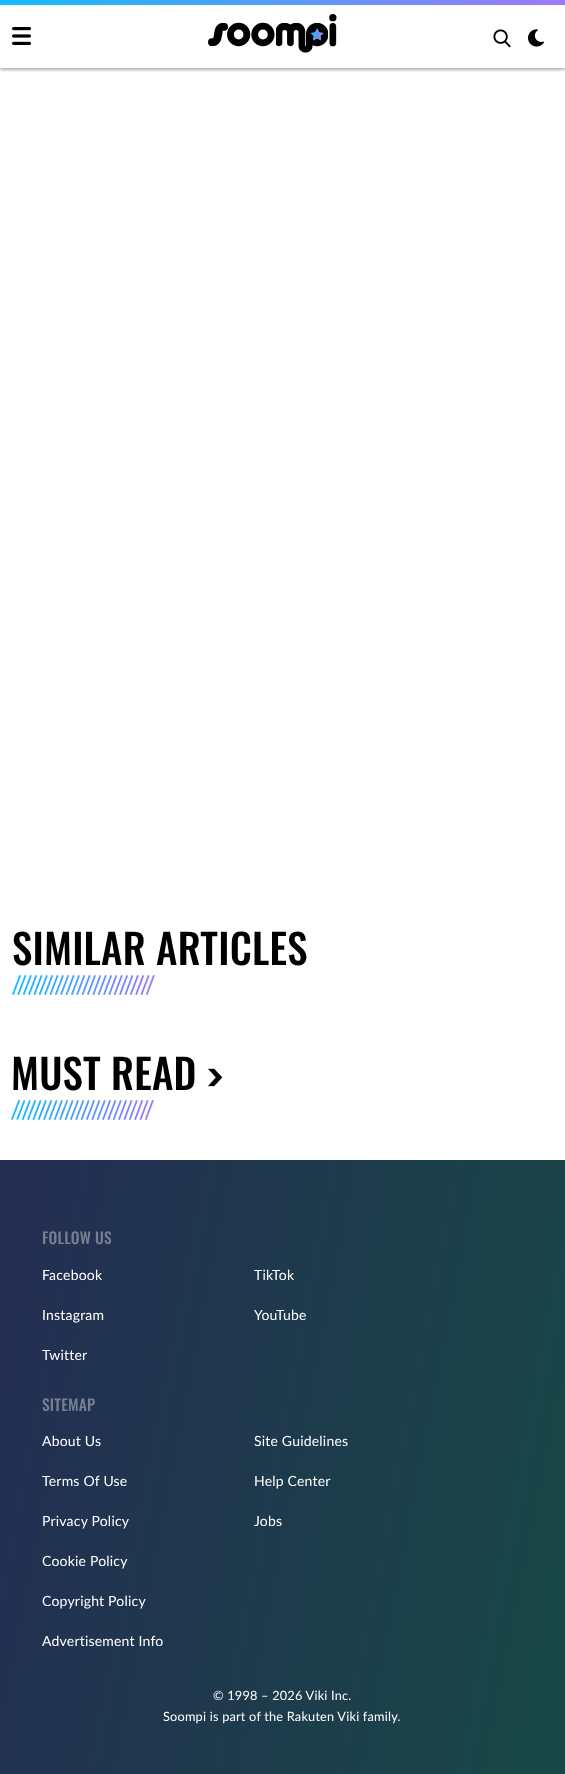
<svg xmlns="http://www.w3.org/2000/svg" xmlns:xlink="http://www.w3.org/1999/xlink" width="565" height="1774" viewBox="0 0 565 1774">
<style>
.cls-1{font:500 41px Oswald;letter-spacing:0.2px;fill:#000000}
.cls-2{font:500 15.5px Oswald;letter-spacing:0.2px;fill:#767f93}
.cls-3{font:14px Lato;letter-spacing:0.2px;fill:#ffffff}
.cls-4{font:12.75px Lato;letter-spacing:0.2px;fill:#ffffff}
</style>
<defs>
<clipPath id="clip1"><rect x="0" y="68" width="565" height="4"/></clipPath>
<linearGradient id="g1" gradientUnits="userSpaceOnUse" x1="-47" y1="1403" x2="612" y2="1531"><stop offset="0" stop-color="#242d53"/><stop offset="1" stop-color="#184846"/></linearGradient>
</defs>
<rect width="100%" height="100%" fill="#ffffff"/>
<g clip-path="url(#clip1)">
<rect fill="#000000" fill-opacity="0.3" filter="blur(1.5px)" x="0" y="2" width="565" height="68"/>
</g>
<image xlink:href="image0.png" x="0" y="0" width="565" height="5"/>
<image xlink:href="image1.png" x="12" y="27" width="19" height="18"/>
<image xlink:href="image2.png" x="208" y="14" width="129" height="39"/>
<image xlink:href="image3.png" x="493" y="29" width="18" height="19"/>
<image xlink:href="image4.png" x="528" y="29" width="16" height="18"/>
<image xlink:href="image5.png" x="12" y="975" width="143" height="20"/>
<image xlink:href="image6.png" x="208" y="1068" width="15" height="19"/>
<image xlink:href="image5.png" x="11" y="1100" width="143" height="20"/>
<rect fill="url(#g1)" x="0" y="1160" width="565" height="614"/>
<text class="cls-1" x="12" y="965">SIMILAR ARTICLES</text>
<text class="cls-1" x="11" y="1090">MUST READ</text>
<text class="cls-2" x="42" y="1244">FOLLOW US</text>
<text class="cls-3" x="42" y="1280">Facebook</text>
<text class="cls-3" x="254" y="1280">TikTok</text>
<text class="cls-3" x="42" y="1320">Instagram</text>
<text class="cls-3" x="254" y="1320">YouTube</text>
<text class="cls-3" x="42" y="1360">Twitter</text>
<text class="cls-2" x="42" y="1411">SITEMAP</text>
<text class="cls-3" x="42" y="1446">About Us</text>
<text class="cls-3" x="254" y="1446">Site Guidelines</text>
<text class="cls-3" x="42" y="1486">Terms Of Use</text>
<text class="cls-3" x="254" y="1486">Help Center</text>
<text class="cls-3" x="42" y="1526">Privacy Policy</text>
<text class="cls-3" x="254" y="1526">Jobs</text>
<text class="cls-3" x="42" y="1566">Cookie Policy</text>
<text class="cls-3" x="42" y="1606">Copyright Policy</text>
<text class="cls-3" x="42" y="1646">Advertisement Info</text>
<text class="cls-4" x="213" y="1700">© 1998 – 2026 Viki Inc.</text>
<text class="cls-4" x="163" y="1721">Soompi is part of the Rakuten Viki family.</text>
</svg>
